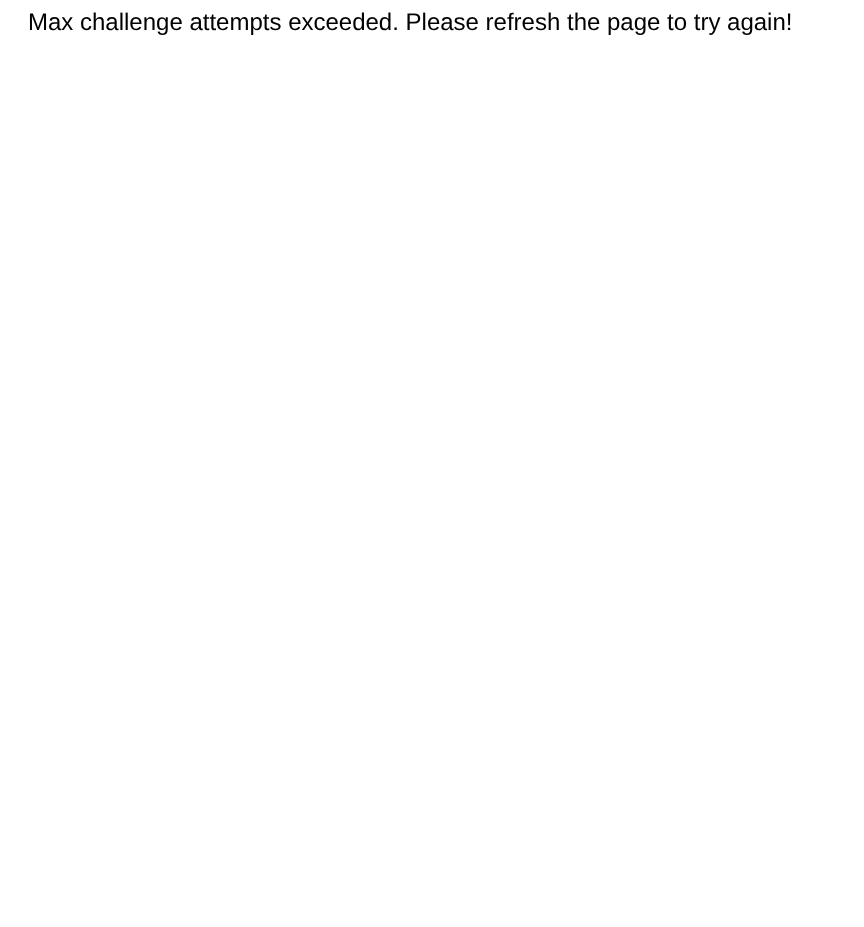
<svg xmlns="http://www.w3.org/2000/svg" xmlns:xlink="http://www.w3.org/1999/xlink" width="864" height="927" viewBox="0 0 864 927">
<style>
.cls-1{font:24px Liberation Sans;fill:#000000}
</style>
<rect width="100%" height="100%" fill="#ffffff"/>
<text class="cls-1" x="28" y="30">Max challenge attempts exceeded. Please refresh the page to try again!</text>
</svg>
